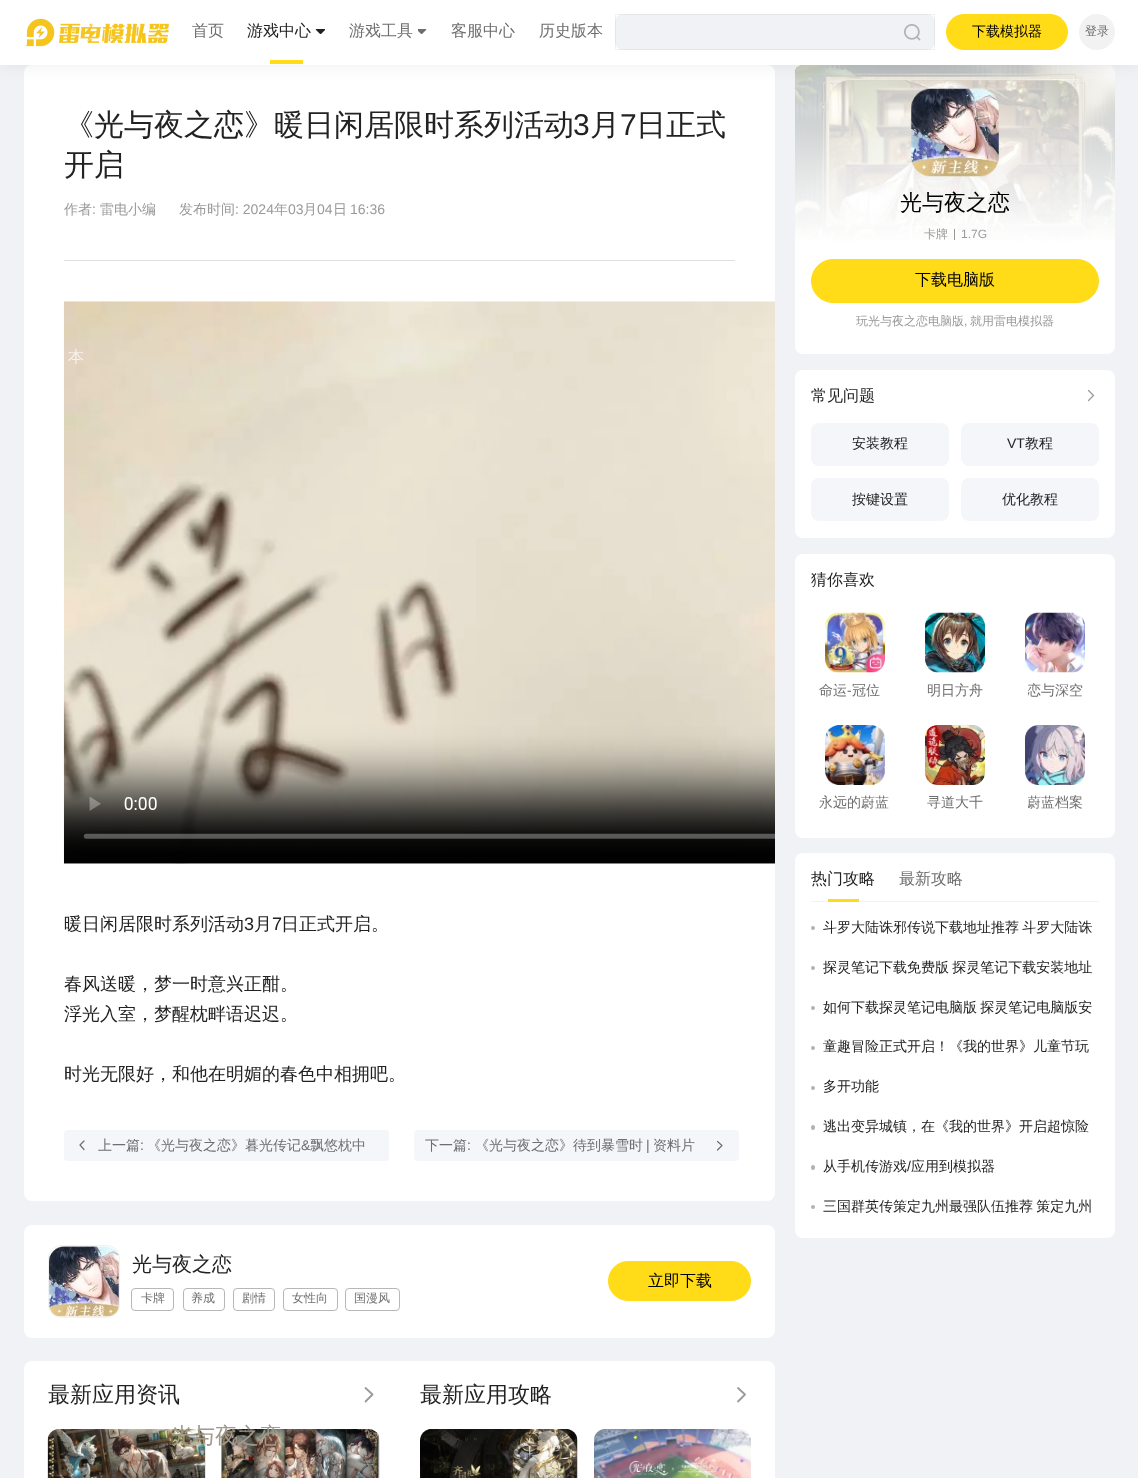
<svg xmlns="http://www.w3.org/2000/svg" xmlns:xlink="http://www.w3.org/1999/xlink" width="1138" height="1478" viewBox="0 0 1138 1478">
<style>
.cls-1{font:500 16px WenQuanYi Zen Hei;fill:#6e6e6e}
.cls-2{font:500 16px WenQuanYi Zen Hei;fill:#222222}
.cls-3{font:500 14px WenQuanYi Zen Hei;fill:#000000}
.cls-4{font:500 12px WenQuanYi Zen Hei;fill:#6e6e6e}
.cls-5{font:500 30px WenQuanYi Zen Hei;fill:#222222}
.cls-6{font:30px Liberation Sans;fill:#222222}
.cls-7{font:500 14px WenQuanYi Zen Hei;fill:#999999}
.cls-8{font:14px Liberation Sans;fill:#999999}
.cls-9{font:500 18px WenQuanYi Zen Hei;fill:#222222}
.cls-10{font:18px Liberation Sans;fill:#222222}
.cls-11{font:500 14px WenQuanYi Zen Hei;fill:#6e6e6e}
.cls-12{font:14px Liberation Sans;fill:#6e6e6e}
.cls-13{font:500 20px WenQuanYi Zen Hei;fill:#222222}
.cls-14{font:500 16px WenQuanYi Zen Hei;fill:#000000}
.cls-15{font:500 22px WenQuanYi Zen Hei;fill:#222222}
.cls-16{font:500 22px WenQuanYi Zen Hei;fill:#000000}
.cls-17{font:500 12px WenQuanYi Zen Hei;fill:#999999}
.cls-18{font:12px Liberation Sans;fill:#999999}
.cls-19{font:500 14px WenQuanYi Zen Hei;fill:#222222}
.cls-20{font:14px Liberation Sans;fill:#222222}
.cls-21{font:500 16px WenQuanYi Zen Hei;fill:#f6f2ed}
.cls-22{font:500 22px WenQuanYi Zen Hei;fill:#a0998c}
</style>
<defs>
<linearGradient id="g1" gradientUnits="userSpaceOnUse" x1="955" y1="65" x2="955" y2="245"><stop offset="0" stop-color="#ffffff" stop-opacity="0.7"/><stop offset="1" stop-color="#ffffff"/></linearGradient>
<clipPath id="clip1"><rect x="1028" y="681" width="55" height="20"/></clipPath>
<clipPath id="clip2"><rect x="1028" y="793" width="55" height="20"/></clipPath>
</defs>
<rect width="100%" height="100%" fill="#f0f2f6"/>
<rect fill="#ffffff" x="24" y="65" width="751" height="1136" rx="8"/>
<rect fill="#ffffff" x="795" y="65" width="320" height="289" rx="8"/>
<image xlink:href="image10.png" x="795" y="65" width="320" height="176"/>
<path fill="url(#g1)" d="M803 65H1107C1111.5 65 1115 68.5 1115 73V245H795V73C795 68.5 798.5 65 803 65Z"/>
<image xlink:href="image11.png" x="911" y="88" width="88" height="89"/>
<rect fill="#000000" fill-opacity="0.05" filter="blur(7.5px)" x="0" y="3" width="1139" height="65"/>
<rect fill="#ffffff" x="0" y="0" width="1138" height="65"/>
<image xlink:href="image0.png" x="25" y="18" width="144" height="29"/>
<image xlink:href="image1.png" x="315" y="29" width="10" height="5"/>
<rect fill="#ffdb18" x="270" y="60" width="33" height="4"/>
<image xlink:href="image2.png" x="418" y="29" width="9" height="5"/>
<rect fill="#f0f2f6" x="615" y="14" width="320" height="36" rx="8"/>
<rect fill="none" stroke="#000000" stroke-opacity="0.05" x="615.5" y="14.5" width="319" height="35"/>
<image xlink:href="image3.png" x="904" y="24" width="17" height="17"/>
<rect fill="#ffdb18" stroke="#ffdb18" x="946.5" y="14.5" width="121" height="35" rx="17.5"/>
<circle fill="#f2f2f2" cx="1097" cy="32" r="18"/>
<rect fill="#e0e0e0" x="64" y="260" width="671" height="1"/>
<image xlink:href="image4.png" x="63" y="301" width="712" height="563"/>
<rect fill="#f5f6fa" x="64" y="1130" width="325" height="31" rx="4"/>
<path fill="none" stroke="#6e6e6e" stroke-width="1.2" stroke-linecap="round" stroke-linejoin="round" d="M84 1149.5L80 1145L84 1141"/>
<rect fill="#f5f6fa" x="414" y="1130" width="325" height="31" rx="4"/>
<path fill="none" stroke="#6e6e6e" stroke-width="1.2" stroke-linecap="round" stroke-linejoin="round" d="M717.5 1141.5L722 1145.5L717.5 1150"/>
<rect fill="#ffffff" x="24" y="1225" width="751" height="113" rx="8"/>
<rect fill="none" stroke="#f2f2f2" x="48.5" y="1245.5" width="71" height="72" rx="12.5"/>
<image xlink:href="image5.png" x="49" y="1246" width="70" height="71"/>
<rect fill="none" stroke="#b7b7b7" x="131.5" y="1288.5" width="42" height="22" rx="3.5"/>
<rect fill="none" stroke="#b7b7b7" x="183.5" y="1288.5" width="41" height="22" rx="3.5"/>
<rect fill="none" stroke="#b7b7b7" x="233.5" y="1288.5" width="41" height="22" rx="3.5"/>
<rect fill="none" stroke="#b7b7b7" x="283.5" y="1288.5" width="54" height="22" rx="3.5"/>
<rect fill="none" stroke="#b7b7b7" x="345.5" y="1288.5" width="54" height="22" rx="3.5"/>
<rect fill="#ffdb18" stroke="#ffdb18" x="608.5" y="1261.5" width="142" height="39" rx="19.5"/>
<rect fill="#ffffff" x="24" y="1361" width="751" height="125" rx="8"/>
<path fill="none" stroke="#999999" stroke-width="1.8" stroke-linecap="round" stroke-linejoin="round" d="M365.5 1388L372.5 1394.5L365.5 1401.5"/>
<rect fill="#e4e7ee" x="48" y="1429" width="158" height="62" rx="13"/>
<image xlink:href="image6.png" x="47" y="1429" width="158" height="49"/>
<rect fill="#e4e7ee" x="221" y="1429" width="159" height="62" rx="13"/>
<image xlink:href="image7.png" x="221" y="1429" width="158" height="49"/>
<path fill="none" stroke="#999999" stroke-width="1.8" stroke-linecap="round" stroke-linejoin="round" d="M738 1388L745 1394.5L738 1401.5"/>
<rect fill="#e4e7ee" x="420" y="1429" width="158" height="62" rx="13"/>
<image xlink:href="image8.png" x="420" y="1429" width="158" height="49"/>
<image xlink:href="image9.png" x="594" y="1429" width="157" height="49"/>
<rect fill="#999999" x="954" y="229" width="1" height="11"/>
<rect fill="#ffdb18" stroke="#ffdb18" x="811.5" y="259.5" width="287" height="43" rx="21.5"/>
<rect fill="#ffffff" x="795" y="370" width="320" height="168" rx="8"/>
<path fill="none" stroke="#999999" stroke-width="1.3" stroke-linecap="round" stroke-linejoin="round" d="M1088.5 390.5L1093.5 395.5L1088.5 400.5"/>
<rect fill="#f5f6fa" x="811" y="423" width="138" height="43" rx="8"/>
<rect fill="#f5f6fa" x="961" y="423" width="138" height="43" rx="8"/>
<rect fill="#f5f6fa" x="811" y="478" width="138" height="43" rx="8"/>
<rect fill="#f5f6fa" x="961" y="478" width="138" height="43" rx="8"/>
<rect fill="#ffffff" x="795" y="554" width="320" height="284" rx="8"/>
<image xlink:href="image12.png" x="825" y="612" width="60" height="61"/>
<image xlink:href="image13.png" x="925" y="612" width="60" height="61"/>
<image xlink:href="image14.png" x="1025" y="612" width="60" height="61"/>
<image xlink:href="image15.png" x="825" y="725" width="60" height="60"/>
<image xlink:href="image16.png" x="925" y="725" width="60" height="60"/>
<image xlink:href="image17.png" x="1025" y="725" width="60" height="60"/>
<rect fill="#ffffff" x="795" y="853" width="320" height="385" rx="8"/>
<rect fill="#f2f2f2" x="811" y="901" width="288" height="1"/>
<rect fill="#ffdb18" x="828" y="899" width="31" height="3"/>
<circle fill="#b3b3b3" cx="813" cy="928" r="2"/>
<circle fill="#b3b3b3" cx="813" cy="968" r="2"/>
<circle fill="#b3b3b3" cx="813" cy="1008" r="2"/>
<circle fill="#b3b3b3" cx="813" cy="1048" r="2"/>
<circle fill="#b3b3b3" cx="813" cy="1088" r="2"/>
<rect fill="#b3b3b3" x="811" y="1125" width="4" height="5" rx="2"/>
<rect fill="#b3b3b3" x="811" y="1165" width="4" height="5" rx="2"/>
<circle fill="#b3b3b3" cx="813" cy="1207" r="2"/>
<text class="cls-1" x="192" y="36">首页</text>
<text class="cls-2" x="247" y="36">游戏中心</text>
<text class="cls-1" x="349" y="36">游戏工具</text>
<text class="cls-1" x="451" y="36">客服中心</text>
<text class="cls-1" x="539" y="36">历史版本</text>
<text class="cls-3" x="972" y="36">下载模拟器</text>
<text class="cls-4" x="1085" y="35">登录</text>
<text class="cls-5" x="64" y="135">《光与夜之恋》暖日闲居限时系列活动</text>
<text class="cls-6" x="573" y="135">3</text>
<text class="cls-5" x="590" y="135">月</text>
<text class="cls-6" x="620" y="135">7</text>
<text class="cls-5" x="636" y="135">日正式</text>
<text class="cls-5" x="64" y="175">开启</text>
<text class="cls-7" x="64" y="214">作者</text>
<text class="cls-8" x="92" y="214">:</text>
<text class="cls-7" x="100" y="214">雷电小编</text>
<text class="cls-7" x="179" y="214">发布时间</text>
<text class="cls-8" x="235" y="214">: 2024</text>
<text class="cls-7" x="274" y="214">年</text>
<text class="cls-8" x="288" y="214">03</text>
<text class="cls-7" x="303" y="214">月</text>
<text class="cls-8" x="317" y="214">04</text>
<text class="cls-7" x="333" y="214">日</text>
<text class="cls-8" x="350" y="214">16:36</text>
<text class="cls-9" x="64" y="930">暖日闲居限时系列活动</text>
<text class="cls-10" x="244" y="930">3</text>
<text class="cls-9" x="254" y="930">月</text>
<text class="cls-10" x="272" y="930">7</text>
<text class="cls-9" x="281" y="930">日正式开启。</text>
<text class="cls-9"><tspan x="64" y="990">春风送暖，梦一时意兴正酣。</tspan><tspan x="64" y="1020">浮光入室，梦醒枕畔语迟迟。</tspan></text>
<text class="cls-9" x="64" y="1080">时光无限好，和他在明媚的春色中相拥吧。</text>
<text class="cls-11" x="98" y="1150">上一篇</text>
<text class="cls-12" x="140" y="1150">:</text>
<text class="cls-11" x="147" y="1150">《光与夜之恋》暮光传记</text>
<text class="cls-12" x="301" y="1150">&amp;</text>
<text class="cls-11" x="310" y="1150">飘悠枕中</text>
<text class="cls-11" x="425" y="1150">下一篇</text>
<text class="cls-12" x="467" y="1150">:</text>
<text class="cls-11" x="475" y="1150">《光与夜之恋》待到暴雪时</text>
<text class="cls-12" x="646" y="1150">|</text>
<text class="cls-11" x="653" y="1150">资料片</text>
<text class="cls-13" x="132" y="1271">光与夜之恋</text>
<text class="cls-4" x="141" y="1302">卡牌</text>
<text class="cls-4" x="191" y="1302">养成</text>
<text class="cls-4" x="242" y="1302">剧情</text>
<text class="cls-4" x="292" y="1302">女性向</text>
<text class="cls-4" x="354" y="1302">国漫风</text>
<text class="cls-14" x="648" y="1286">立即下载</text>
<text class="cls-15" x="48" y="1402">最新应用资讯</text>
<text class="cls-15" x="420" y="1402">最新应用攻略</text>
<text class="cls-16" x="900" y="210">光与夜之恋</text>
<text class="cls-17" x="924" y="238">卡牌</text>
<text class="cls-18" x="961" y="238">1.7G</text>
<text class="cls-14" x="915" y="285">下载电脑版</text>
<text class="cls-17" x="856" y="325">玩光与夜之恋电脑版</text>
<text class="cls-18" x="964" y="325">,</text>
<text class="cls-17" x="970" y="325">就用雷电模拟器</text>
<text class="cls-2" x="811" y="401">常见问题</text>
<text class="cls-19" x="852" y="448">安装教程</text>
<text class="cls-20" x="1007" y="448">VT</text>
<text class="cls-19" x="1025" y="448">教程</text>
<text class="cls-19" x="852" y="504">按键设置</text>
<text class="cls-19" x="1002" y="504">优化教程</text>
<text class="cls-2" x="811" y="585">猜你喜欢</text>
<text class="cls-11" x="819" y="695">命运</text>
<text class="cls-12" x="847" y="695">-</text>
<text class="cls-11" x="852" y="695">冠位</text>
<text class="cls-11" x="927" y="695">明日方舟</text>
<g clip-path="url(#clip1)">
<text class="cls-11" x="1027" y="695">恋与深空</text>
</g>
<text class="cls-11" x="819" y="807">永远的蔚蓝</text>
<text class="cls-11" x="927" y="807">寻道大千</text>
<g clip-path="url(#clip2)">
<text class="cls-11" x="1027" y="807">蔚蓝档案</text>
</g>
<text class="cls-2" x="811" y="884">热门攻略</text>
<text class="cls-1" x="899" y="884">最新攻略</text>
<text class="cls-19" x="823" y="932" word-spacing="-1">斗罗大陆诛邪传说下载地址推荐 斗罗大陆诛</text>
<text class="cls-19" x="823" y="972" word-spacing="-1">探灵笔记下载免费版 探灵笔记下载安装地址</text>
<text class="cls-19" x="823" y="1012" word-spacing="-1">如何下载探灵笔记电脑版 探灵笔记电脑版安</text>
<text class="cls-19" x="823" y="1051">童趣冒险正式开启！《我的世界》儿童节玩</text>
<text class="cls-19" x="823" y="1091">多开功能</text>
<text class="cls-19" x="823" y="1131">逃出变异城镇，在《我的世界》开启超惊险</text>
<text class="cls-19" x="823" y="1171">从手机传游戏</text>
<text class="cls-20" x="907" y="1171">/</text>
<text class="cls-19" x="911" y="1171">应用到模拟器</text>
<text class="cls-19" x="823" y="1211" word-spacing="-1">三国群英传策定九州最强队伍推荐 策定九州</text>
<text class="cls-21" x="68" y="362">本</text>
<text class="cls-22" x="171" y="1443">光与夜之恋</text>
</svg>
